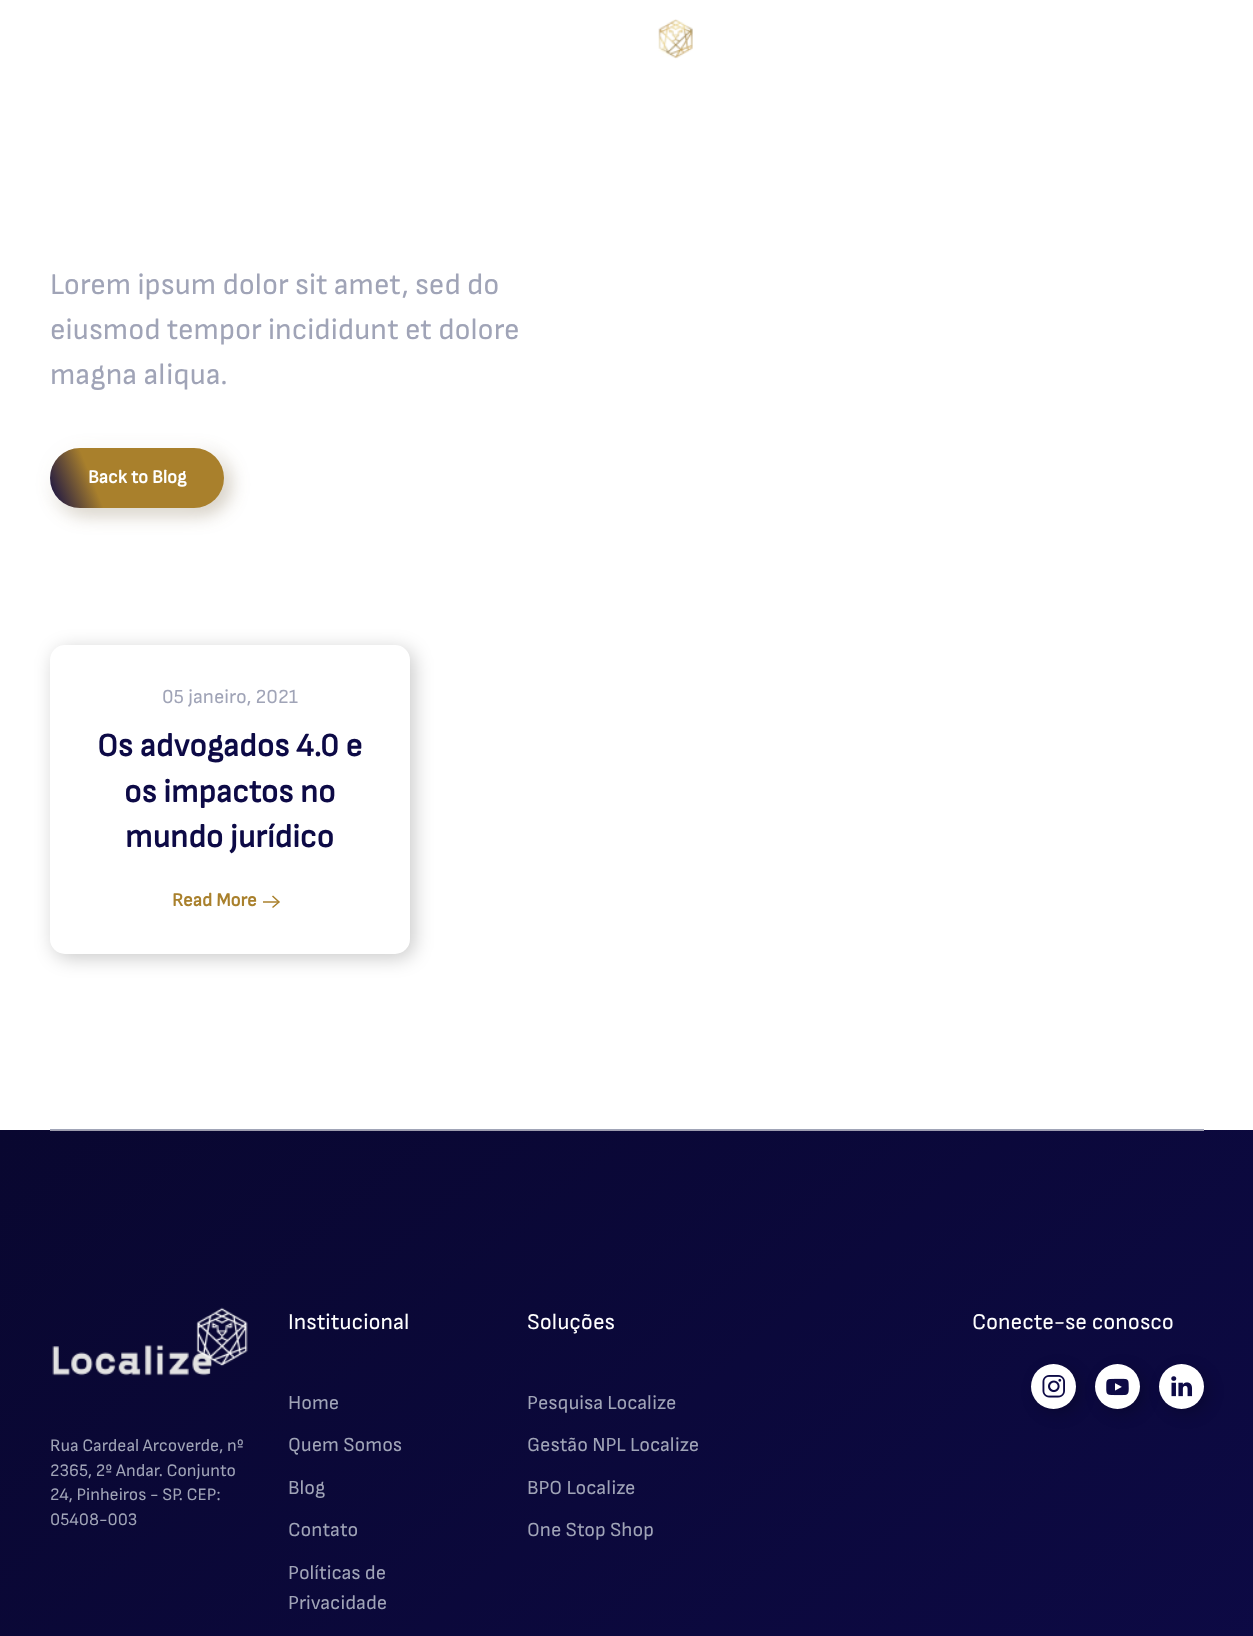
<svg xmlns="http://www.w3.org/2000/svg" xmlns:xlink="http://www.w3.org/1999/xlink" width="1253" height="1636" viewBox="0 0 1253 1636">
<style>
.cls-1{font:30px Sofia Sans;fill:#a0a4b7}
.cls-2{font:bold 18.75px Sofia Sans;fill:#ffffff}
.cls-3{font:20px Sofia Sans;fill:#a0a4b7}
.cls-4{font:bold 32.5px Sofia Sans;fill:#0d0a46}
.cls-5{font:bold 18.75px Sofia Sans;fill:#a9802c}
.cls-6{font:22.5px Sofia Sans;fill:#ffffff}
.cls-7{font:17.5px Sofia Sans;fill:#a0a4b7}
</style>
<defs>
<linearGradient id="g1" gradientUnits="userSpaceOnUse" x1="222" y1="443" x2="52" y2="512"><stop offset="0.73" stop-color="#a9802c"/><stop offset="1" stop-color="#0d0a46"/></linearGradient>
<linearGradient id="g2" gradientUnits="userSpaceOnUse" x1="1049" y1="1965" x2="204" y2="958"><stop offset="0" stop-color="#0d0a46"/><stop offset="1" stop-color="#090730"/></linearGradient>
<linearGradient id="g3" gradientUnits="userSpaceOnUse" x1="1049" y1="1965" x2="204" y2="958"><stop offset="0" stop-color="#9e9db5"/><stop offset="1" stop-color="#9d9cac"/></linearGradient>
</defs>
<rect width="100%" height="100%" fill="#ffffff"/>
<image xlink:href="image0.png" x="658" y="19" width="35" height="40"/>
<rect fill="#584317" fill-opacity="0.3" filter="blur(9.5px)" x="56" y="454" width="174" height="60" rx="30"/>
<rect fill="#ffffff" fill-opacity="0.9" filter="blur(9.5px)" x="44" y="441" width="174" height="60" rx="30"/>
<rect fill="url(#g1)" x="50" y="448" width="174" height="60" rx="30"/>
<rect fill="#000000" fill-opacity="0.21" filter="blur(9.5px)" x="54" y="649" width="360" height="309" rx="15"/>
<rect fill="#ffffff" x="50" y="645" width="360" height="309" rx="15"/>
<path fill="none" stroke="#a9802c" stroke-width="1.5" d="M272.5 896L279 902L272.5 907.5"/>
<rect fill="#a9802c" fill-opacity="0.75" x="263" y="901" width="16" height="2"/>
<rect fill="#a0a4b7" x="50" y="1129" width="1154" height="1"/>
<rect fill="url(#g2)" x="0" y="1130" width="1253" height="506"/>
<rect fill="url(#g3)" x="50" y="1130" width="1154" height="1"/>
<rect fill="#000000" fill-opacity="0.2" filter="blur(7.5px)" x="1036" y="1369" width="45" height="45" rx="22.5"/>
<circle fill="#ffffff" cx="1053.5" cy="1386.5" r="22.5"/>
<image xlink:href="image1.png" x="1042" y="1375" width="23" height="23"/>
<rect fill="#000000" fill-opacity="0.2" filter="blur(7.5px)" x="1100" y="1369" width="45" height="45" rx="22.5"/>
<circle fill="#ffffff" cx="1117.5" cy="1386.5" r="22.5"/>
<image xlink:href="image2.png" x="1106" y="1378" width="23" height="18"/>
<rect fill="#000000" fill-opacity="0.2" filter="blur(7.5px)" x="1164" y="1369" width="45" height="45" rx="22.5"/>
<circle fill="#ffffff" cx="1181.5" cy="1386.5" r="22.5"/>
<image xlink:href="image3.png" x="1171" y="1376" width="22" height="21"/>
<image xlink:href="image4.png" x="52" y="1307" width="196" height="69"/>
<text class="cls-1"><tspan x="50" y="294">Lorem ipsum dolor sit amet, sed do</tspan><tspan x="50" y="339">eiusmod tempor incididunt et dolore</tspan><tspan x="50" y="384">magna aliqua.</tspan></text>
<text class="cls-2" x="88" y="483">Back to Blog</text>
<text class="cls-3" x="162" y="703">05 janeiro, 2021</text>
<text class="cls-4" x="97" y="756">Os advogados 4.0 e</text>
<text class="cls-4" x="124" y="802">os impactos no</text>
<text class="cls-4" x="125" y="847">mundo jurídico</text>
<text class="cls-5" x="172" y="906">Read More</text>
<text class="cls-6" x="288" y="1329">Institucional</text>
<text class="cls-3" x="288" y="1409">Home</text>
<text class="cls-3" x="288" y="1451">Quem Somos</text>
<text class="cls-3" x="288" y="1494">Blog</text>
<text class="cls-3" x="288" y="1536">Contato</text>
<text class="cls-3"><tspan x="288" y="1579">Políticas de</tspan><tspan x="288" y="1609">Privacidade</tspan></text>
<text class="cls-6" x="527" y="1329">Soluções</text>
<text class="cls-3" x="527" y="1409">Pesquisa Localize</text>
<text class="cls-3" x="527" y="1451">Gestão NPL Localize</text>
<text class="cls-3" x="527" y="1494">BPO Localize</text>
<text class="cls-3" x="527" y="1536">One Stop Shop</text>
<text class="cls-6" x="972" y="1329">Conecte-se conosco</text>
<text class="cls-7"><tspan x="50" y="1451">Rua Cardeal Arcoverde, nº</tspan><tspan x="50" y="1476">2365, 2º Andar. Conjunto</tspan><tspan x="50" y="1500">24, Pinheiros - SP. CEP:</tspan><tspan x="50" y="1525">05408-003</tspan></text>
</svg>
